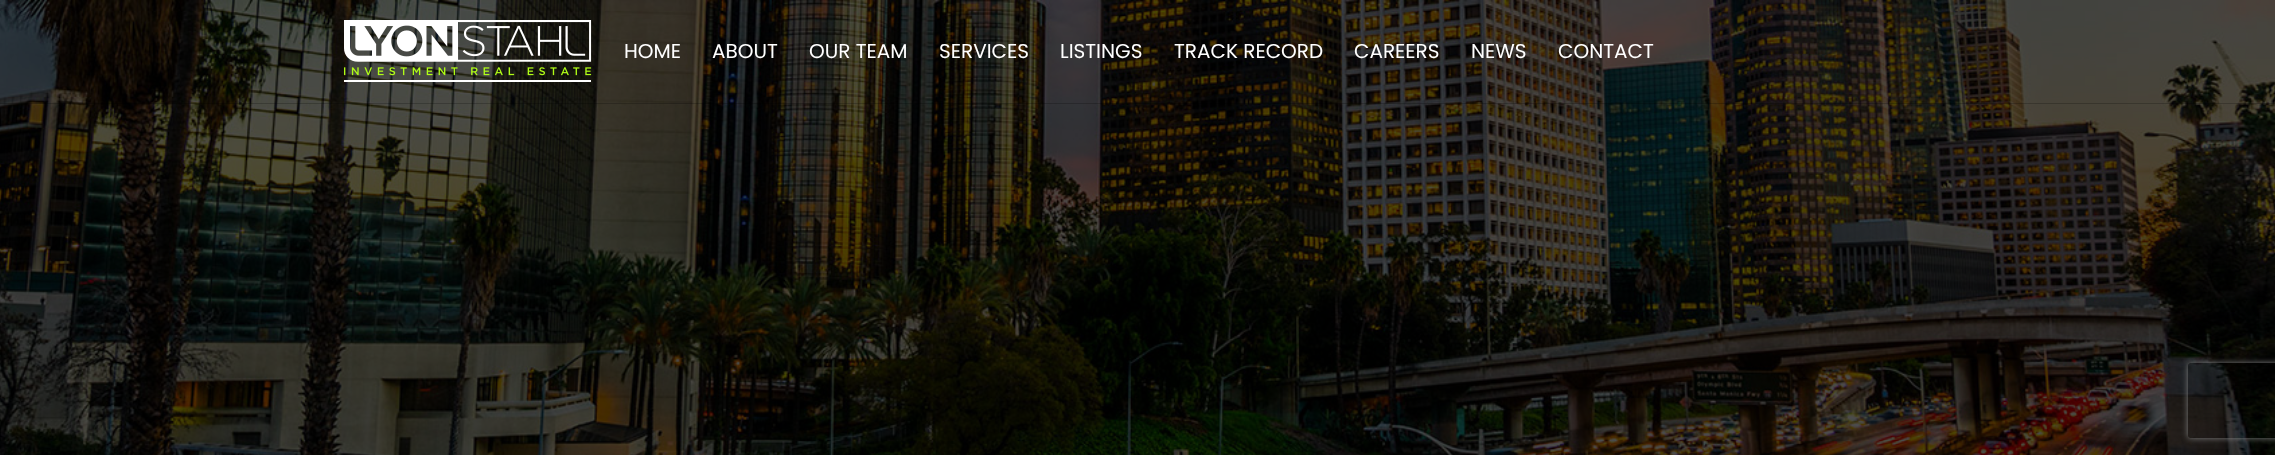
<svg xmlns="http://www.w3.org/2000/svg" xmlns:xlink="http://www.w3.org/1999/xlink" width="2275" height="455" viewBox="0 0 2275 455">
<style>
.cls-1{font:20px Poppins;fill:#ffffff}
</style>
<defs>
<clipPath id="clip1"><path d="M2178 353H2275V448H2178ZM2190.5 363H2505.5C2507 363 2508 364 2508 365.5V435.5C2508 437 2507 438 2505.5 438H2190.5C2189 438 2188 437 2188 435.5V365.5C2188 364 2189 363 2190.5 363Z" clip-rule="evenodd"/></clipPath>
</defs>
<rect width="100%" height="100%" fill="#ffffff"/>
<image xlink:href="image0.png" x="0" y="0" width="2275" height="455"/>
<rect fill="#000000" fill-opacity="0.2" x="0" y="103" width="2275" height="1"/>
<image xlink:href="image1.png" x="344" y="20" width="248" height="62"/>
<g clip-path="url(#clip1)">
<rect fill="#808080" filter="blur(3px)" x="2188" y="363" width="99" height="75" rx="2.5"/>
</g>
<text class="cls-1" x="624" y="58">HOME</text>
<text class="cls-1" x="712" y="58">ABOUT</text>
<text class="cls-1" x="809" y="58">OUR TEAM</text>
<text class="cls-1" x="939" y="58">SERVICES</text>
<text class="cls-1" x="1060" y="58">LISTINGS</text>
<text class="cls-1" x="1174" y="58">TRACK RECORD</text>
<text class="cls-1" x="1354" y="58">CAREERS</text>
<text class="cls-1" x="1471" y="58">NEWS</text>
<text class="cls-1" x="1558" y="58">CONTACT</text>
</svg>
